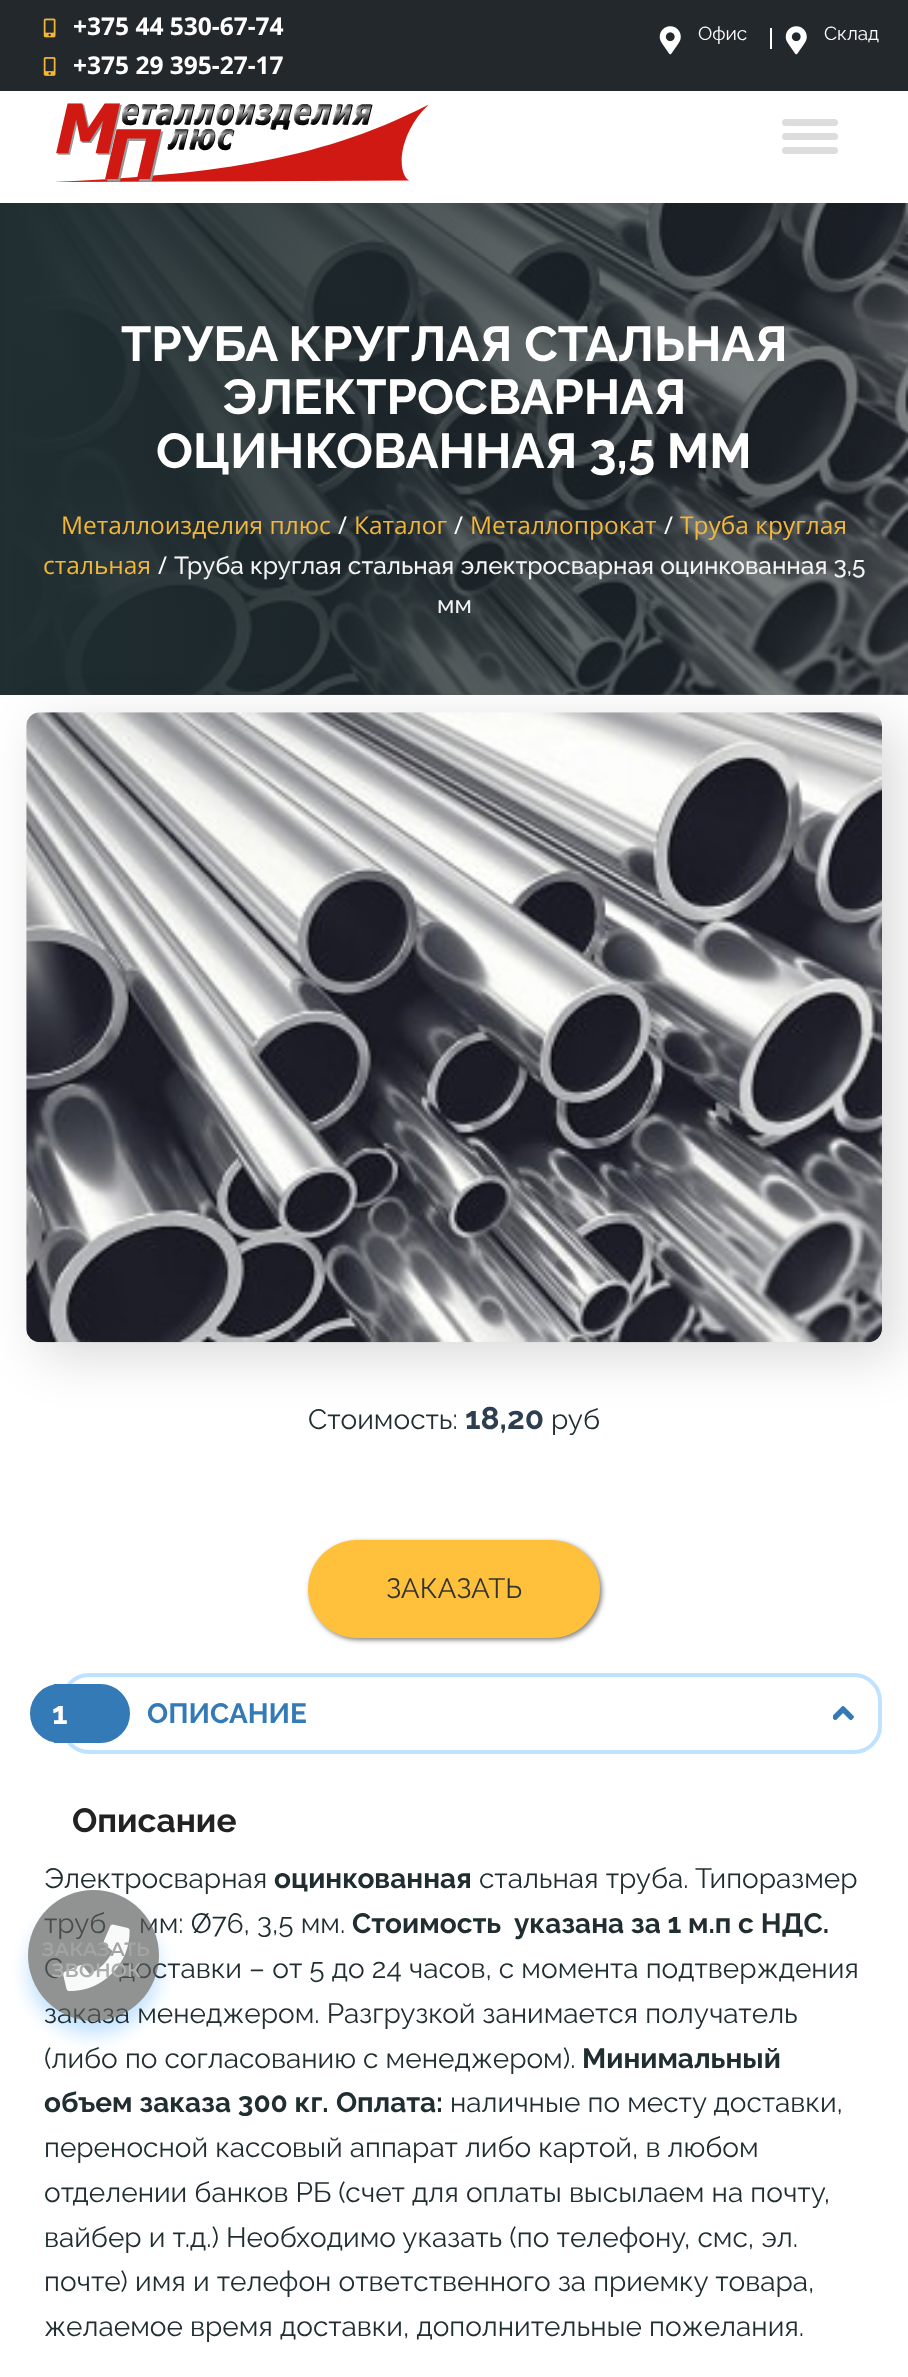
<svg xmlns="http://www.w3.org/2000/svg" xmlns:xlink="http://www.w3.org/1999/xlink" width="908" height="2377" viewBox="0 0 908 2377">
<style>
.cls-1{font:bold 24.5px Open Sans;fill:#ffffff}
.cls-2{font:19px Raleway;fill:#ffffff}
.cls-3{font:bold 49px Raleway;fill:#ffffff}
.cls-4{font:24.5px Open Sans;fill:#f2b739}
.cls-5{font:24.5px Open Sans;fill:#ffffff}
.cls-6{font:500 24.5px Raleway;fill:#f3f3f3}
.cls-7{font:28px Raleway;fill:#202e31}
.cls-8{font:bold 31.5px Raleway;fill:#2c3e50}
.cls-9{font:28px Raleway;fill:#333333}
.cls-10{font:bold 31.5px Raleway;fill:#ffffff}
.cls-11{font:bold 28px Raleway;fill:#337ab7}
.cls-12{font:bold 33.5px Raleway;fill:#222222}
.cls-13{font:bold 28px Raleway;fill:#202e31}
.cls-14{font:600 19.25px Montserrat;fill:#a2a4a2}
.cls-15{font:600 19.25px Montserrat;fill:#abaead}
</style>
<defs>
<linearGradient id="g1" gradientUnits="userSpaceOnUse" x1="0" y1="393" x2="908" y2="393"><stop offset="0" stop-color="#202e31"/><stop offset="1" stop-color="#161e21" stop-opacity="0.5"/><stop offset="1" stop-color="#12191b" stop-opacity="0.35"/><stop offset="1" stop-color="#12191b" stop-opacity="0"/></linearGradient>
<clipPath id="clip1"><path d="M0 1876H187V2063H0ZM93.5 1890C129.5 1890 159 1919.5 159 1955.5C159 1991.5 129.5 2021 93.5 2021C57.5 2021 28 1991.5 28 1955.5C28 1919.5 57.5 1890 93.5 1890Z" clip-rule="evenodd"/></clipPath>
</defs>
<rect width="100%" height="100%" fill="#ffffff"/>
<rect fill="#23282d" x="0" y="0" width="908" height="91"/>
<image xlink:href="image0.png" x="43" y="18" width="13" height="20"/>
<image xlink:href="image1.png" x="43" y="57" width="13" height="19"/>
<image xlink:href="image2.png" x="659" y="26" width="22" height="29"/>
<rect fill="#ffffff" x="770" y="28" width="2" height="21"/>
<image xlink:href="image2.png" x="785" y="26" width="22" height="29"/>
<image xlink:href="image3.png" x="11" y="203" width="897" height="492"/>
<rect fill="url(#g1)" x="0" y="203" width="908" height="492"/>
<rect fill="#000000" fill-opacity="0.15" filter="blur(26px)" x="40" y="726" width="856" height="630" rx="14"/>
<image xlink:href="image4.png" x="26" y="712" width="856" height="631"/>
<rect fill="#000000" fill-opacity="0.5" filter="blur(2.5px)" x="310" y="1542" width="292" height="98" rx="49"/>
<rect fill="#ffc13c" x="308" y="1540" width="292" height="98" rx="49"/>
<rect fill="none" stroke="#bfe2ff" stroke-width="4" x="63" y="1675" width="817" height="77" rx="26"/>
<path fill="#337ab7" stroke="#337ab7" stroke-width="4" d="M56 1686H100.5C115.5 1686 128 1698.5 128 1713.5C128 1728.5 115.5 1741 100.5 1741H56Z"/>
<circle fill="#337ab7" stroke="#337ab7" stroke-width="5" cx="59.5" cy="1713.5" r="27"/>
<image xlink:href="image5.png" x="833" y="1706" width="21" height="15"/>
<image xlink:href="image6.png" x="56" y="103" width="373" height="79"/>
<rect fill="#dddddd" x="782" y="119" width="56" height="7" rx="3.5"/>
<rect fill="#dddddd" x="782" y="133" width="56" height="7" rx="3.5"/>
<rect fill="#dddddd" x="782" y="147" width="56" height="7" rx="3.5"/>
<g clip-path="url(#clip1)">
<rect fill="#38a3fd" fill-opacity="0.3" filter="blur(9px)" x="28" y="1904" width="131" height="131" rx="65.5"/>
</g>
<text class="cls-1"><tspan x="73" y="35">+375 44 530-67-74</tspan><tspan x="73" y="74">+375 29 395-27-17</tspan></text>
<text class="cls-2" x="698" y="40">Офис</text>
<text class="cls-2" x="824" y="40">Склад</text>
<text class="cls-3" x="121" y="361">ТРУБА КРУГЛАЯ СТАЛЬНАЯ</text>
<text class="cls-3" x="222" y="414">ЭЛЕКТРОСВАРНАЯ</text>
<text class="cls-3" x="156" y="468">ОЦИНКОВАННАЯ 3,5 ММ</text>
<text class="cls-4" x="61" y="534">Металлоизделия плюс</text>
<text class="cls-5" x="338" y="534">/</text>
<text class="cls-4" x="354" y="534">Каталог</text>
<text class="cls-5" x="454" y="534">/</text>
<text class="cls-4" x="470" y="534">Металлопрокат</text>
<text class="cls-5" x="664" y="534">/</text>
<text class="cls-4" x="680" y="534">Труба круглая</text>
<text class="cls-4" x="43" y="574">стальная</text>
<text class="cls-5" x="158" y="574">/</text>
<text class="cls-6" x="174" y="574">Труба круглая стальная электросварная оцинкованная 3,5</text>
<text class="cls-6" x="437" y="613">мм</text>
<text class="cls-7" x="308" y="1429">Стоимость:</text>
<text class="cls-8" x="465" y="1429">18,20</text>
<text class="cls-7" x="551" y="1429">руб</text>
<text class="cls-9" x="386" y="1598">ЗАКАЗАТЬ</text>
<text class="cls-10" x="52" y="1724">1</text>
<text class="cls-11" x="147" y="1723">ОПИСАНИЕ</text>
<text class="cls-12" x="72" y="1832">Описание</text>
<text class="cls-7" x="44" y="1888">Электросварная</text>
<text class="cls-13" x="274" y="1888">оцинкованная</text>
<text class="cls-7" x="479" y="1888">стальная труба.</text>
<text class="cls-7" x="695" y="1888">Типоразмер</text>
<text class="cls-7" x="44" y="1933">труб</text>
<text class="cls-7" x="139" y="1933">мм: Ø76, 3,5 мм.</text>
<text class="cls-13" xml:space="preserve" x="352" y="1933">Стоимость  указана за 1 м.п с НДС.</text>
<text class="cls-7" x="44" y="1978">С</text>
<text class="cls-7" x="119" y="1978">доставки – от 5 до 24 часов, с момента подтверждения</text>
<text class="cls-7"><tspan x="44" y="2023">заказа менеджером. Разгрузкой занимается получатель</tspan><tspan x="44" y="2068">(либо по согласованию с менеджером).</tspan></text>
<text class="cls-13" x="582" y="2068">Минимальный</text>
<text class="cls-13" x="44" y="2112">объем заказа 300 кг.</text>
<text class="cls-13" x="336" y="2112">Оплата:</text>
<text class="cls-7" x="450" y="2112">наличные по месту доставки,</text>
<text class="cls-7"><tspan x="44" y="2157">переносной кассовый аппарат либо картой, в любом</tspan><tspan x="44" y="2202">отделении банков РБ (счет для оплаты высылаем на почту,</tspan><tspan x="44" y="2247">вайбер и т.д.) Необходимо указать (по телефону, смс, эл.</tspan><tspan x="44" y="2291">почте) имя и телефон ответственного за приемку товара,</tspan><tspan x="44" y="2336">желаемое время доставки, дополнительные пожелания.</tspan></text>
<circle fill="#5a5e5b" fill-opacity="0.67" cx="93.5" cy="1955.5" r="65.5"/>
<image xlink:href="image7.png" x="63" y="1924" width="67" height="68"/>
<text class="cls-14" x="42" y="1956">ЗАКАЗАТЬ</text>
<text class="cls-15" x="52" y="1977">ЗВОНОК</text>
</svg>
